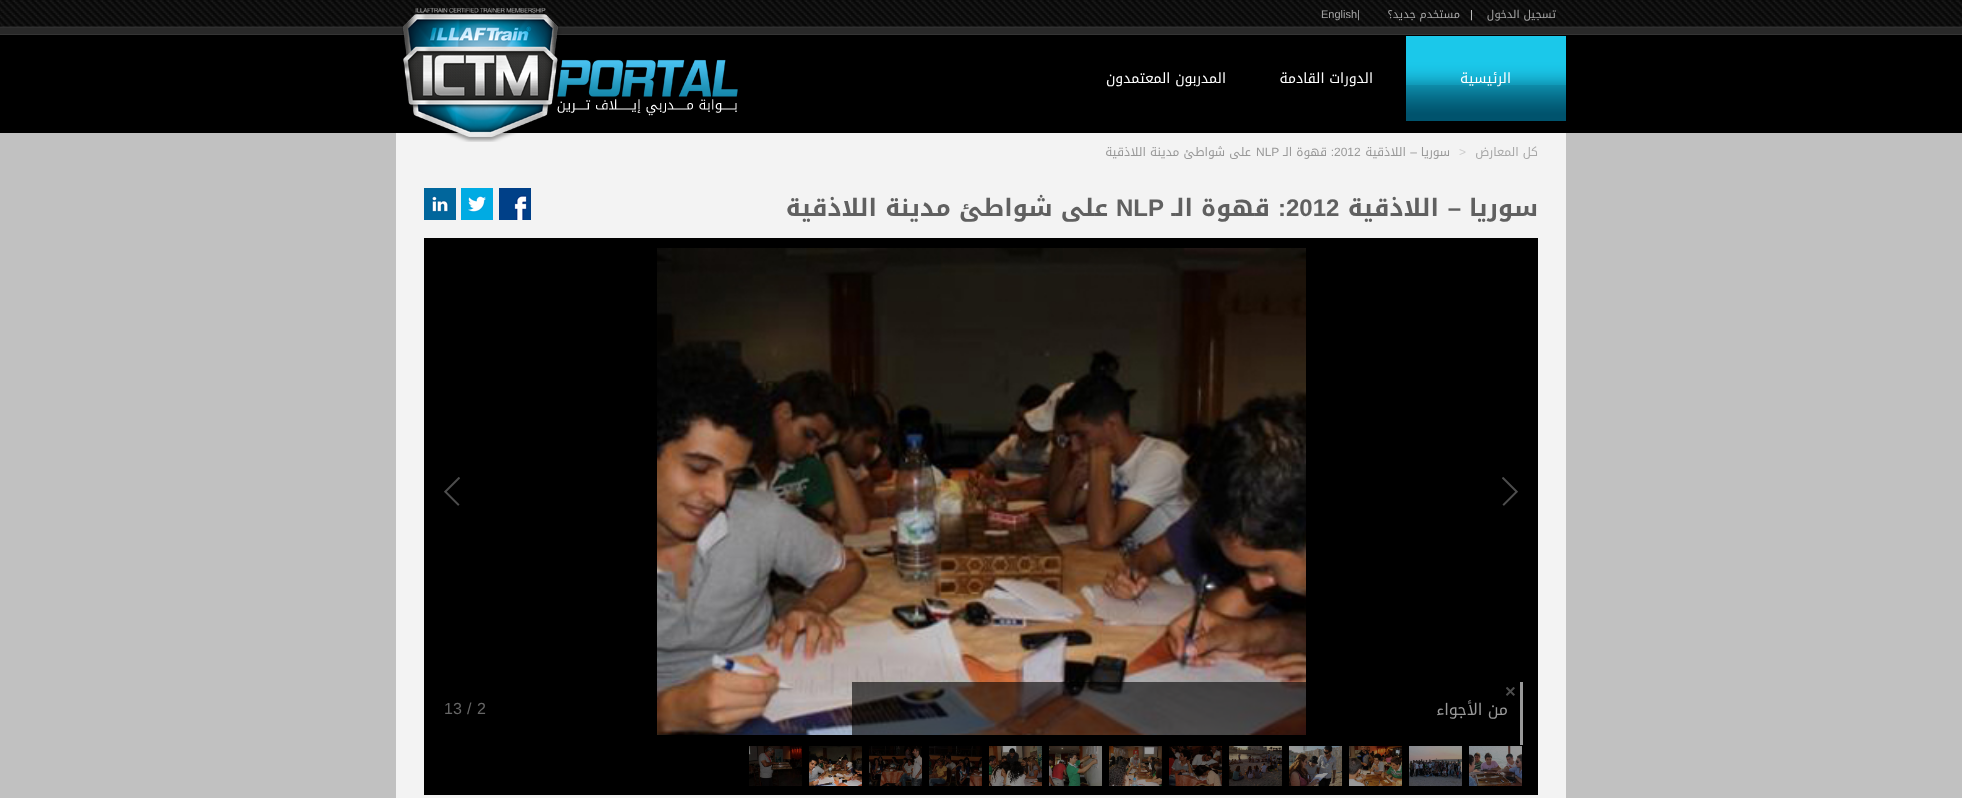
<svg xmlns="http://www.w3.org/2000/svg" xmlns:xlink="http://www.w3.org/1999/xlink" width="1962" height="798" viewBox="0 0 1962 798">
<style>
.cls-1{font:11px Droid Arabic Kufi;direction:rtl;fill:#a8a8a8}
.cls-2{font:11px Liberation Sans;fill:#d2d2d2}
.cls-3{font:11px Liberation Sans;fill:#a8a8a8}
.cls-4{font:14px Droid Arabic Kufi;direction:rtl;fill:#ffffff}
.cls-5{font:12px Droid Arabic Kufi;direction:rtl;fill:#a8a8a8}
.cls-6{font:12px Liberation Sans;fill:#cccccc}
.cls-7{font:12px Droid Arabic Kufi;direction:rtl;fill:#999999}
.cls-8{font:12px Liberation Sans;direction:rtl;fill:#999999}
.cls-9{font:12px Liberation Sans;fill:#999999}
.cls-10{font:bold 24px Droid Arabic Kufi;direction:rtl;fill:#606060}
.cls-11{font:bold 24px Liberation Sans;direction:rtl;fill:#606060}
.cls-12{font:bold 24px Liberation Sans;fill:#606060}
.cls-13{font:16px Droid Arabic Kufi;direction:rtl;fill:#999999}
.cls-14{font:16px Liberation Sans;fill:#666666}
</style>
<rect width="100%" height="100%" fill="#c1c1c1"/>
<rect fill="#000000" x="0" y="35" width="1962" height="98"/>
<image xlink:href="image0.png" x="0" y="0" width="1962" height="35"/>
<image xlink:href="image1.png" x="396" y="0" width="690" height="35"/>
<image xlink:href="image2.png" x="1086" y="0" width="480" height="35"/>
<image xlink:href="image3.png" x="1406" y="36" width="160" height="85"/>
<rect fill="#f3f3f3" x="396" y="133" width="1170" height="665"/>
<image xlink:href="image4.png" x="402" y="8" width="336" height="134"/>
<image xlink:href="image5.png" x="499" y="188" width="32" height="32"/>
<image xlink:href="image6.png" x="461" y="188" width="32" height="32"/>
<image xlink:href="image7.png" x="424" y="188" width="32" height="32"/>
<rect fill="#000000" x="424" y="238" width="1114" height="557"/>
<rect fill="#999999" x="1520" y="682" width="3" height="63"/>
<image xlink:href="image8.png" x="1506" y="687" width="9" height="9"/>
<image xlink:href="image9.png" x="657" y="248" width="649" height="487"/>
<rect fill="#000000" fill-opacity="0.6" x="852" y="682" width="454" height="53"/>
<image xlink:href="image10.png" x="1502" y="477" width="16" height="29"/>
<image xlink:href="image11.png" x="444" y="477" width="16" height="29"/>
<image xlink:href="image12.png" x="1469" y="746" width="53" height="40"/>
<image xlink:href="image13.png" x="1409" y="746" width="53" height="40"/>
<image xlink:href="image14.png" x="1349" y="746" width="53" height="40"/>
<image xlink:href="image15.png" x="1289" y="746" width="53" height="40"/>
<image xlink:href="image16.png" x="1229" y="746" width="53" height="40"/>
<image xlink:href="image17.png" x="1169" y="746" width="53" height="40"/>
<image xlink:href="image18.png" x="1109" y="746" width="53" height="40"/>
<image xlink:href="image19.png" x="1049" y="746" width="53" height="40"/>
<image xlink:href="image20.png" x="989" y="746" width="53" height="40"/>
<image xlink:href="image21.png" x="929" y="746" width="53" height="40"/>
<image xlink:href="image22.png" x="869" y="746" width="53" height="40"/>
<image xlink:href="image23.png" x="809" y="746" width="53" height="40"/>
<image xlink:href="image24.png" x="749" y="746" width="53" height="40"/>
<text class="cls-1" x="1556" y="18">تسجيل الدخول</text>
<text class="cls-2" x="1470" y="18">|</text>
<text class="cls-1" x="1460" y="18">مستخدم جديد؟</text>
<text class="cls-3" x="1321" y="18">English|</text>
<text class="cls-4" x="1511" y="83">الرئيسية</text>
<text class="cls-4" x="1373" y="83">الدورات القادمة</text>
<text class="cls-4" x="1226" y="83">المدربون المعتمدون</text>
<text class="cls-5" x="1538" y="156">كل المعارض</text>
<text class="cls-6" x="1459" y="156">&gt;</text>
<text class="cls-7" x="1450" y="156">سوريا</text>
<text class="cls-8" x="1417" y="156">–</text>
<text class="cls-7" x="1406" y="156">اللاذقية</text>
<text class="cls-9" x="1334" y="156">2012</text>
<text class="cls-8" x="1334" y="156">:</text>
<text class="cls-7" x="1327" y="156">قهوة الـ</text>
<text class="cls-9" x="1256" y="156">NLP</text>
<text class="cls-7" x="1251" y="156">على شواطئ مدينة اللاذقية</text>
<text class="cls-10" x="1538" y="216">سوريا</text>
<text class="cls-11" x="1461" y="216">–</text>
<text class="cls-10" x="1439" y="216">اللاذقية</text>
<text class="cls-12" x="1286" y="216">2012</text>
<text class="cls-11" x="1286" y="216">:</text>
<text class="cls-10" x="1270" y="216">قهوة الـ</text>
<text class="cls-12" x="1116" y="216">NLP</text>
<text class="cls-10" x="1108" y="216">على شواطئ مدينة اللاذقية</text>
<text class="cls-13" x="1508" y="715">من الأجواء</text>
<text class="cls-14" x="477" y="714">2</text>
<text class="cls-14" x="467" y="714">/</text>
<text class="cls-14" x="444" y="714">13</text>
</svg>
